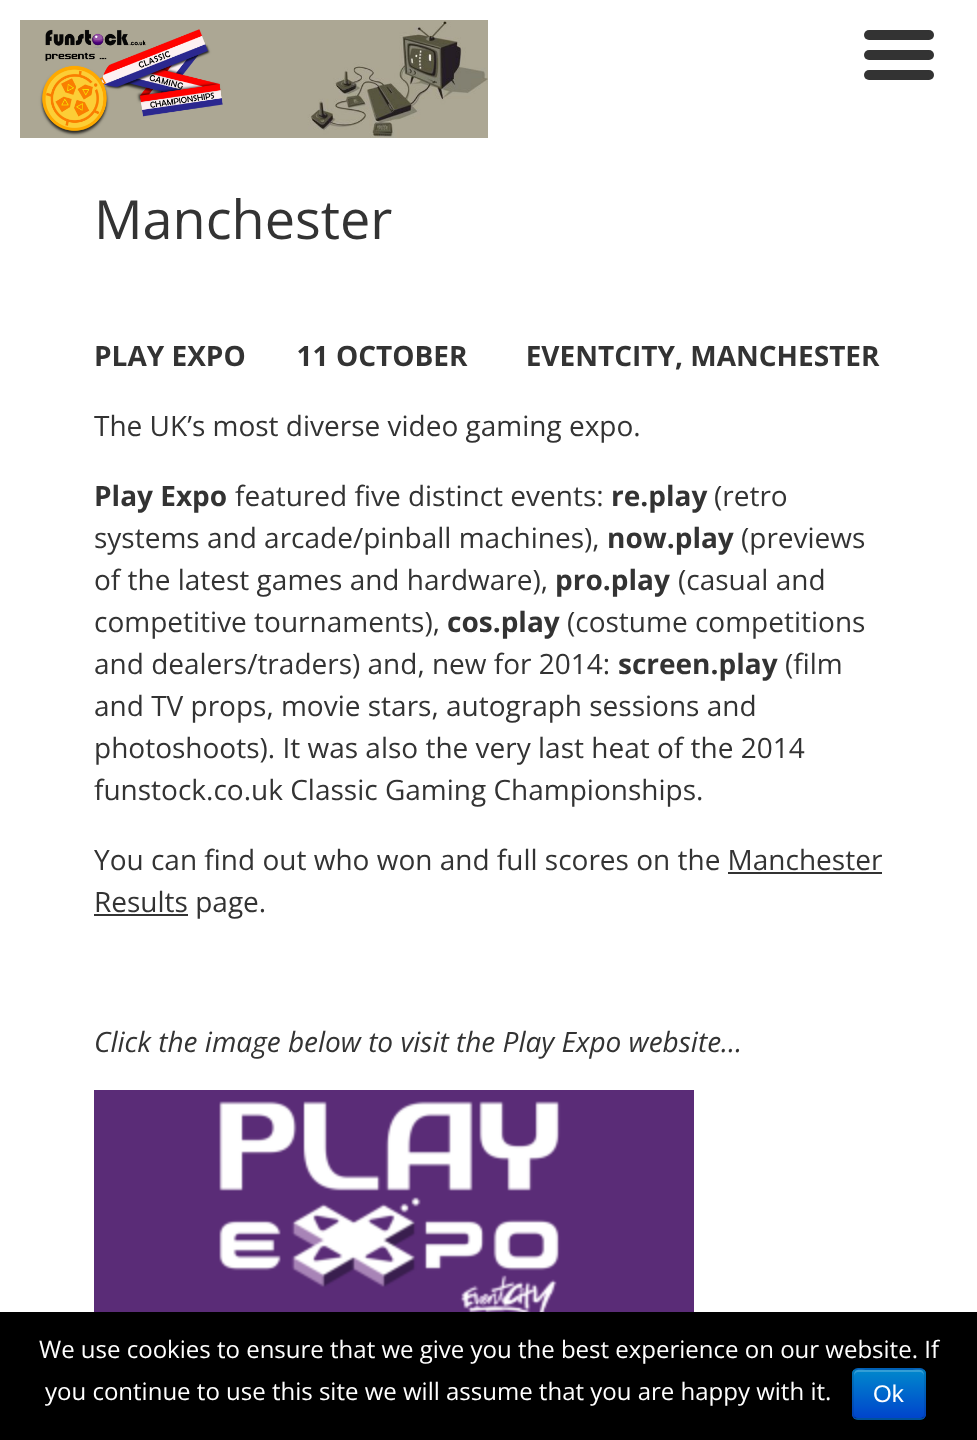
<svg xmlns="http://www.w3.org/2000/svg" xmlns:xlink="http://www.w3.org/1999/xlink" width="977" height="1440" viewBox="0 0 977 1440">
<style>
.cls-1{font:54px Open Sans;fill:#333333}
.cls-2{font:bold 28px Open Sans;fill:#333333}
.cls-3{font:28px Open Sans;fill:#333333}
.cls-4{font:italic 28px Open Sans;fill:#333333}
.cls-5{font:24px Open Sans;fill:#ffffff}
.cls-6{font:24px Liberation Sans;fill:#ffffff}
</style>
<defs>
<clipPath id="clip1"><rect x="852" y="1368" width="74" height="52" rx="6"/></clipPath>
<linearGradient id="g1" gradientUnits="userSpaceOnUse" x1="889" y1="1370" x2="889" y2="1418"><stop offset="0" stop-color="#0088cc"/><stop offset="1" stop-color="#0044cc"/></linearGradient>
</defs>
<rect width="100%" height="100%" fill="#ffffff"/>
<image xlink:href="image0.png" x="20" y="20" width="468" height="118"/>
<rect fill="#333333" x="864" y="30" width="70" height="10" rx="5"/>
<rect fill="#333333" x="864" y="50" width="70" height="10" rx="5"/>
<rect fill="#333333" x="864" y="70" width="70" height="10" rx="5"/>
<rect fill="#333333" x="728" y="872" width="154" height="2"/>
<rect fill="#333333" x="94" y="914" width="94" height="2"/>
<image xlink:href="image1.png" x="94" y="1090" width="600" height="222"/>
<rect fill="#000000" x="0" y="1312" width="977" height="128"/>
<rect fill="#006dcc" x="852" y="1368" width="74" height="52" rx="6"/>
<g clip-path="url(#clip1)">
<rect fill="url(#g1)" x="852" y="1370" width="74" height="48"/>
</g>
<path fill="#ffffff" fill-opacity="0.2" d="M858 1372H920C922 1372 924 1374 924 1376C924 1367 917 1370 910 1370H868C861 1370 854 1367 854 1376C854 1374 856 1372 858 1372Z"/>
<path fill="none" stroke="#000000" stroke-opacity="0.25" stroke-width="2" d="M923.5 1417.5C922.5 1418.5 921.5 1419 920 1419H858C856.5 1419 855.5 1418.5 854.5 1417.5"/>
<path fill="none" stroke="#000000" stroke-opacity="0.1" stroke-width="2" d="M854.5 1417.5C853.5 1416.5 853 1415.5 853 1414V1374C853 1372.5 853.5 1371.5 854.5 1370.5C855.5 1369.5 856.5 1369 858 1369H920C921.5 1369 922.5 1369.5 923.5 1370.5C924.5 1371.5 925 1372.5 925 1374V1414C925 1415.5 924.5 1416.5 923.5 1417.5"/>
<text class="cls-1" x="94" y="239">Manchester</text>
<text class="cls-2" xml:space="preserve" x="94" y="366">PLAY EXPO       11 OCTOBER        EVENTCITY, MANCHESTER</text>
<text class="cls-3" x="94" y="436">The UK’s most diverse video gaming expo.</text>
<text class="cls-2" x="94" y="506">Play Expo</text>
<text class="cls-3" x="235" y="506">featured five distinct events:</text>
<text class="cls-2" x="611" y="506">re.play</text>
<text class="cls-3" x="714" y="506">(retro</text>
<text class="cls-3" x="94" y="548">systems and arcade/pinball machines),</text>
<text class="cls-2" x="607" y="548">now.play</text>
<text class="cls-3" x="741" y="548">(previews</text>
<text class="cls-3" x="94" y="590">of the latest games and hardware),</text>
<text class="cls-2" x="555" y="590">pro.play</text>
<text class="cls-3" x="678" y="590">(casual and</text>
<text class="cls-3" x="94" y="632">competitive tournaments),</text>
<text class="cls-2" x="447" y="632">cos.play</text>
<text class="cls-3" x="567" y="632">(costume competitions</text>
<text class="cls-3" x="94" y="674">and dealers/traders) and, new for 2014:</text>
<text class="cls-2" x="618" y="674">screen.play</text>
<text class="cls-3" x="785" y="674">(film</text>
<text class="cls-3"><tspan x="94" y="716">and TV props, movie stars, autograph sessions and</tspan><tspan x="94" y="758">photoshoots). It was also the very last heat of the 2014</tspan><tspan x="94" y="800">funstock.co.uk Classic Gaming Championships.</tspan></text>
<text class="cls-3"><tspan x="94" y="870">You can find out who won and full scores on the Manchester</tspan><tspan x="94" y="912">Results page.</tspan></text>
<text class="cls-4" x="94" y="1052">Click the image below to visit the Play Expo website…</text>
<text class="cls-5" x="39" y="1358">We use cookies to ensure that we give you the best experience on our website. If</text>
<text class="cls-5" x="45" y="1400">you continue to use this site we will assume that you are happy with it.</text>
<text class="cls-6" x="873" y="1402">Ok</text>
</svg>
